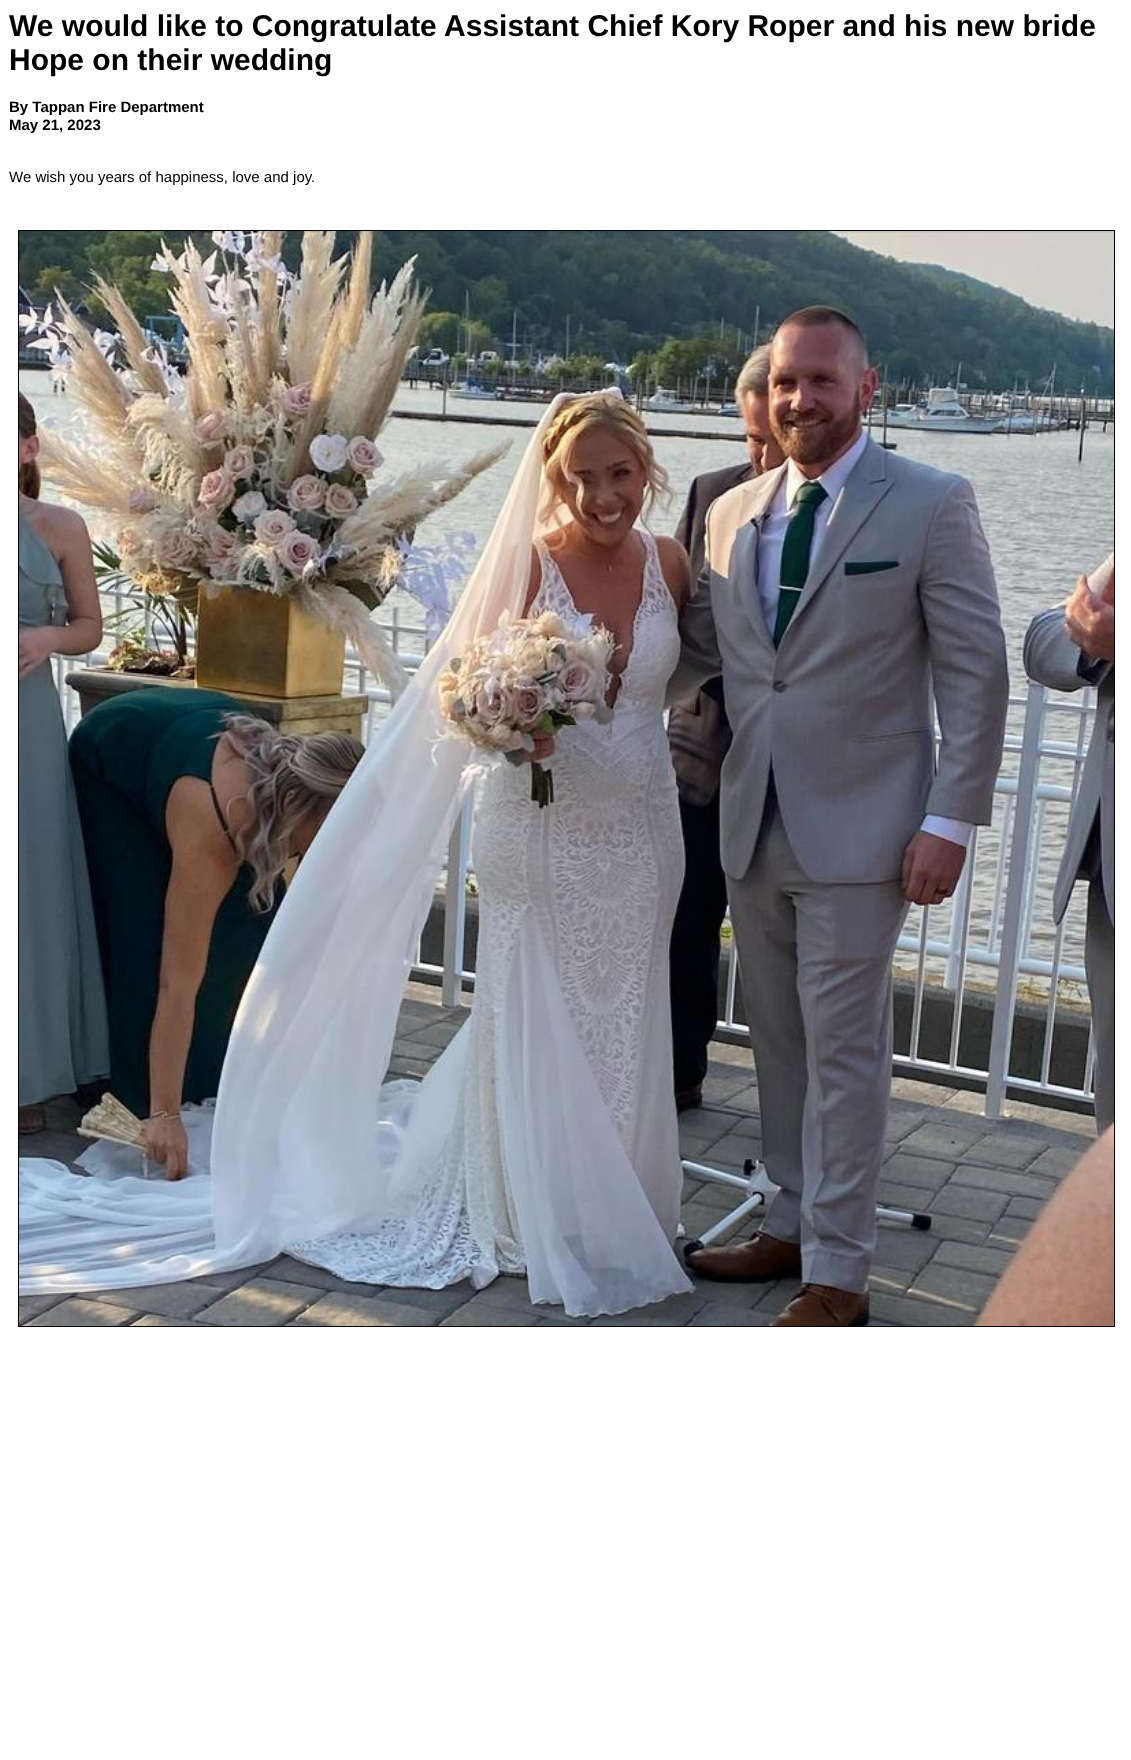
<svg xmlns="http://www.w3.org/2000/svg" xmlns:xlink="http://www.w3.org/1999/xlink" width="1131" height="1760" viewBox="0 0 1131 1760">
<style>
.cls-1{font:bold 30px Liberation Sans;fill:#000000}
.cls-2{font:bold 15px Liberation Sans;fill:#000000}
.cls-3{font:15px Liberation Sans;fill:#000000}
</style>
<rect width="100%" height="100%" fill="#ffffff"/>
<rect fill="none" stroke="#000000" x="18.5" y="230.5" width="1096" height="1096"/>
<image xlink:href="image0.png" x="19" y="231" width="1095" height="1095"/>
<text class="cls-1"><tspan x="9" y="36">We would like to Congratulate Assistant Chief Kory Roper and his new bride</tspan><tspan x="9" y="70">Hope on their wedding</tspan></text>
<text class="cls-2"><tspan x="9" y="112">By Tappan Fire Department</tspan><tspan x="9" y="130">May 21, 2023</tspan></text>
<text class="cls-3" x="9" y="182">We wish you years of happiness, love and joy.</text>
</svg>
